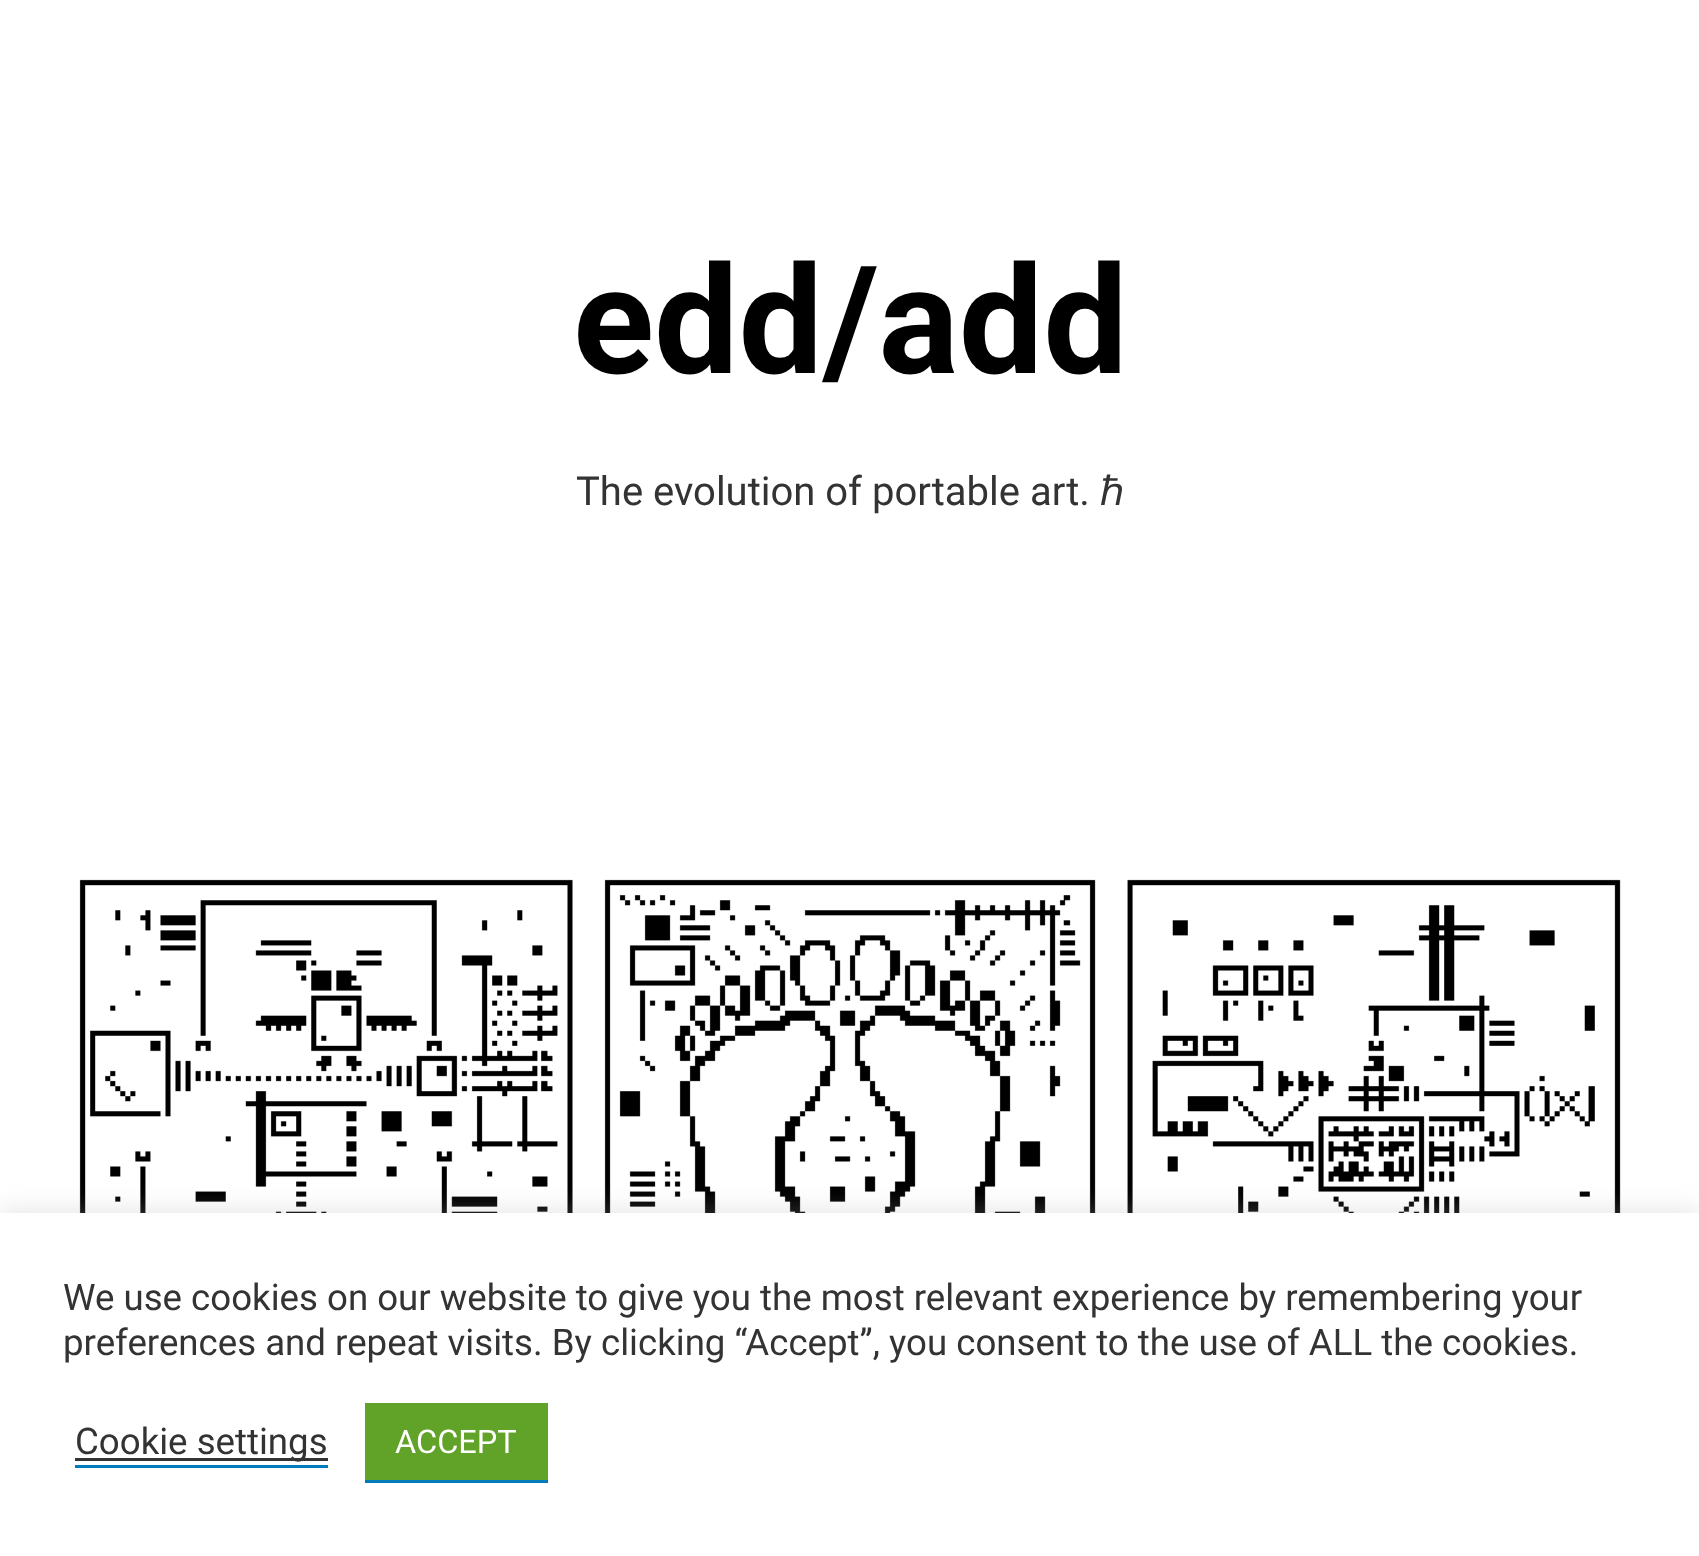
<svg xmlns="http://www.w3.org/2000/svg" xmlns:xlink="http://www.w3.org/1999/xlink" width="1699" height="1556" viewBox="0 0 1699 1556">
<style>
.cls-1{font:bold 150px Roboto;fill:#000000}
.cls-2{font:40px Roboto;fill:#333333}
.cls-3{font:40px Noto Sans;fill:#333333}
.cls-4{font:36.65px Roboto;fill:#333333}
.cls-5{font:32.5px Roboto;fill:#ffffff}
</style>
<rect width="100%" height="100%" fill="#ffffff"/>
<image xlink:href="image0.png" x="79" y="879" width="494" height="334"/>
<image xlink:href="image1.png" x="604" y="879" width="492" height="334"/>
<image xlink:href="image2.png" x="1127" y="879" width="494" height="334"/>
<rect fill="#acabab" fill-opacity="0.3" filter="blur(12.5px)" x="0" y="1210" width="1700" height="345"/>
<rect fill="#ffffff" x="0" y="1213" width="1699" height="343"/>
<rect fill="#007cba" x="75" y="1465" width="253" height="3"/>
<rect fill="#333333" x="75" y="1458" width="253" height="3"/>
<rect fill="#61a229" x="365" y="1403" width="183" height="77"/>
<rect fill="#007cba" x="365" y="1480" width="183" height="3"/>
<text class="cls-1" x="573" y="373">edd/add</text>
<text class="cls-2" x="576" y="505">The evolution of portable art.</text>
<text class="cls-3" x="1100" y="505">ℏ</text>
<text class="cls-4"><tspan x="63" y="1310">We use cookies on our website to give you the most relevant experience by remembering your</tspan><tspan x="63" y="1355">preferences and repeat visits. By clicking “Accept”, you consent to the use of ALL the cookies.</tspan></text>
<text class="cls-4" x="75" y="1454">Cookie settings</text>
<text class="cls-5" x="395" y="1453">ACCEPT</text>
</svg>
